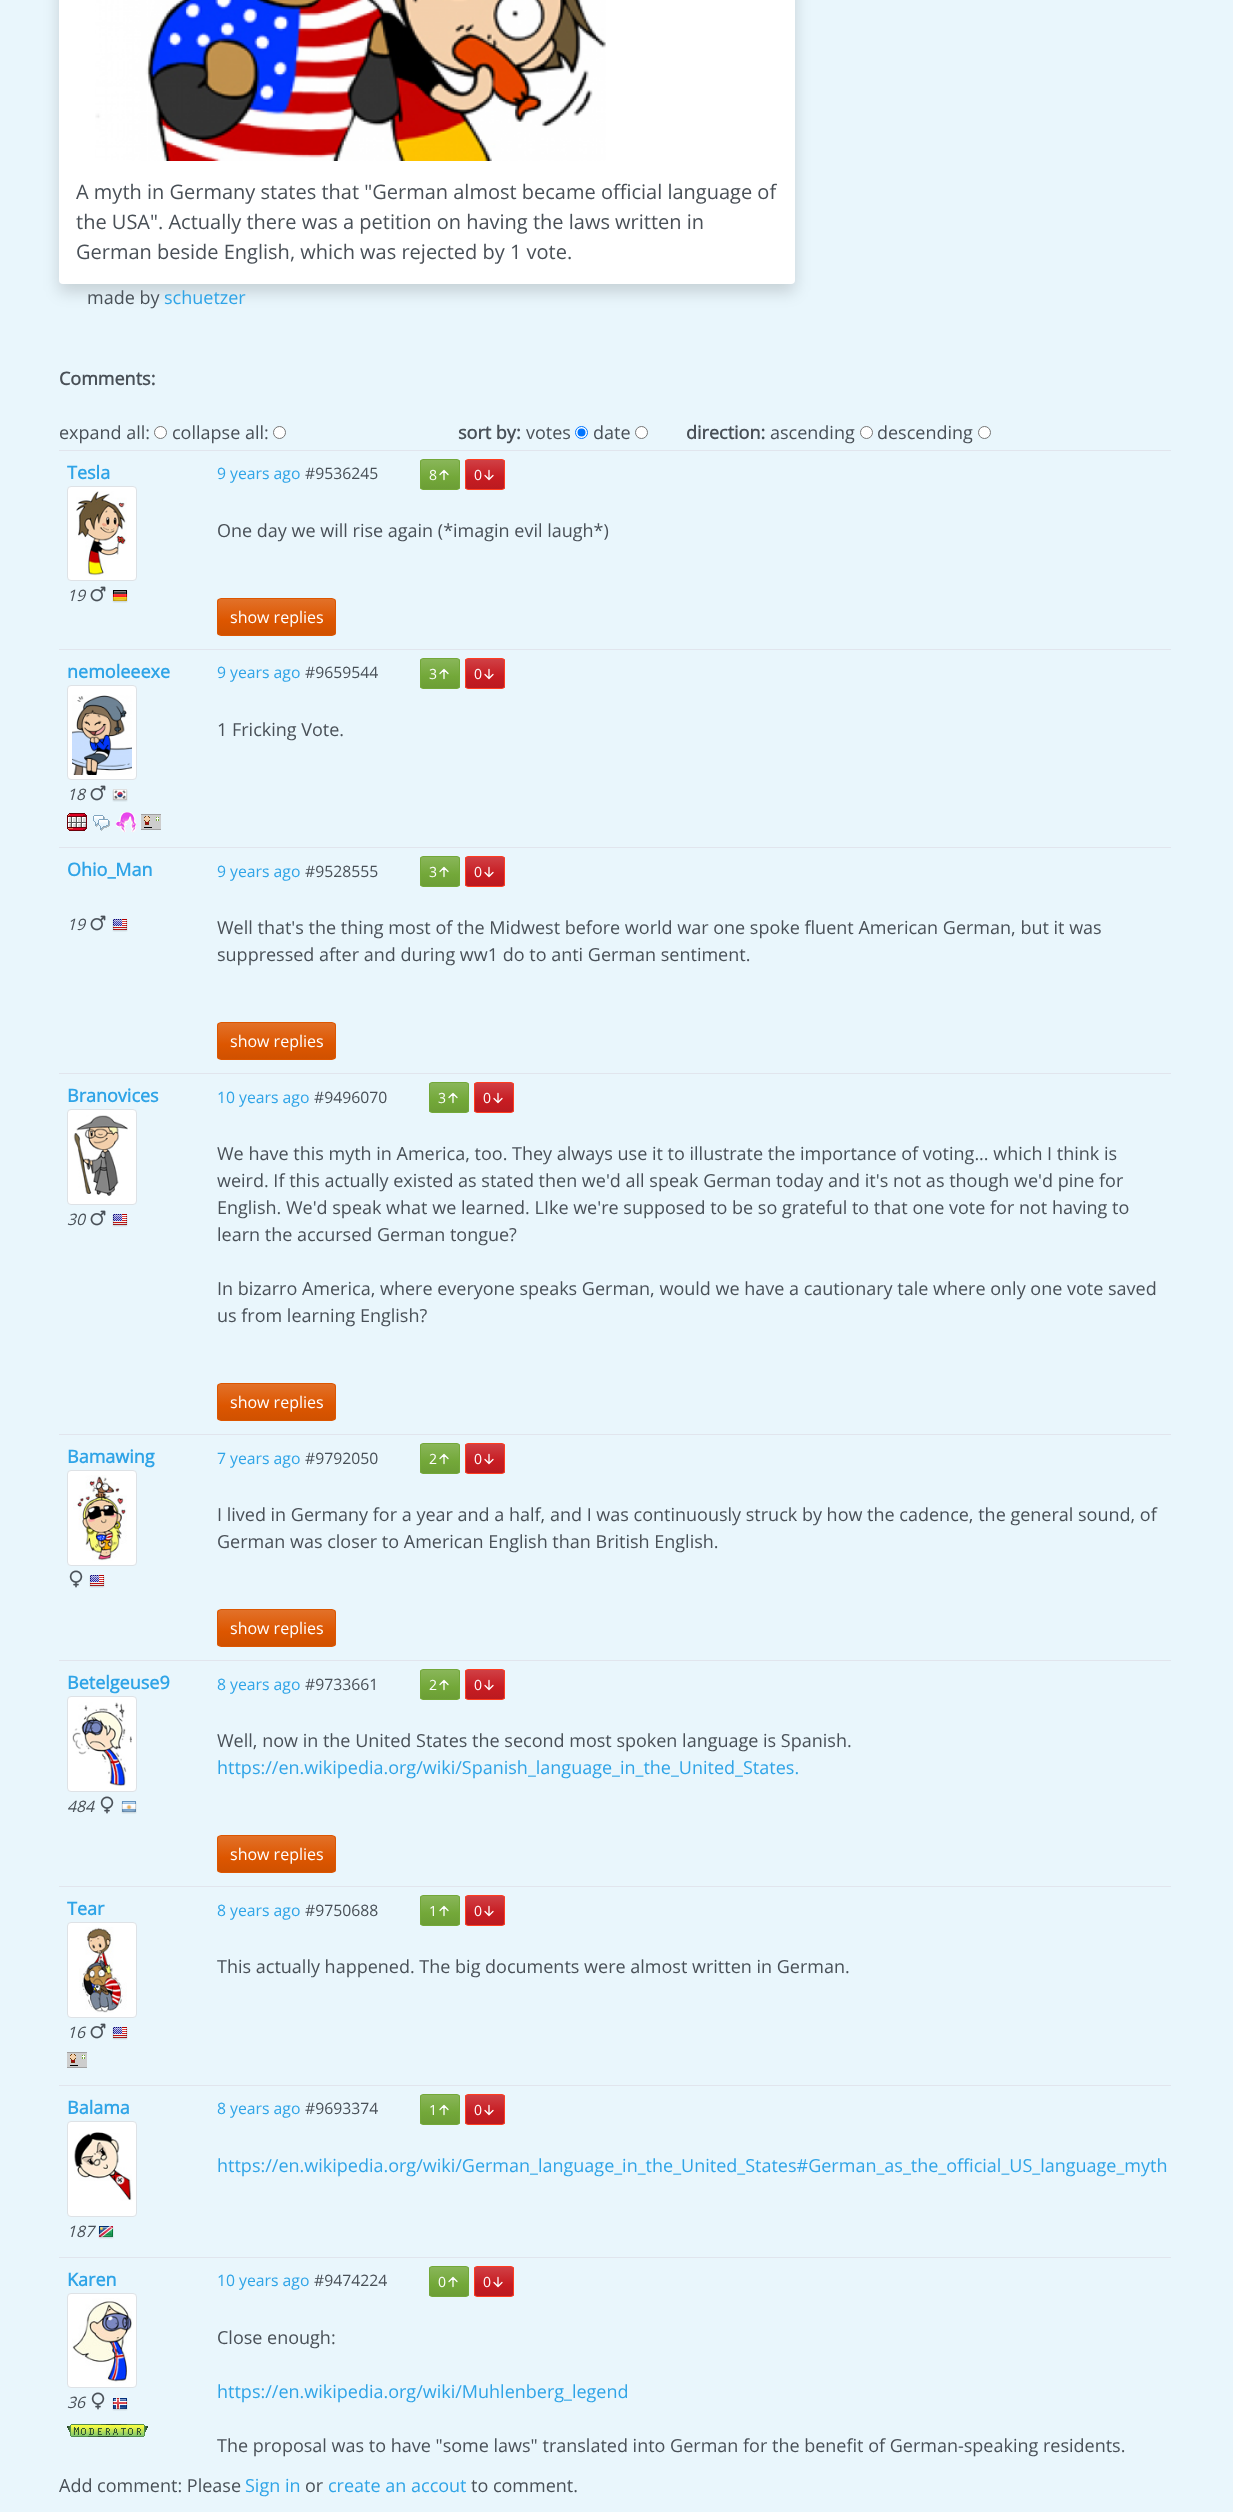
<svg xmlns="http://www.w3.org/2000/svg" xmlns:xlink="http://www.w3.org/1999/xlink" width="1233" height="2512" viewBox="0 0 1233 2512">
<style>
.cls-1{font:20px Open Sans;fill:#495057}
.cls-2{font:18px Open Sans;fill:#495057}
.cls-3{font:18px Open Sans;fill:#2fa4e7}
.cls-4{font:bold 18px Open Sans;fill:#495057}
.cls-5{font:bold 18px Open Sans;fill:#2fa4e7}
.cls-6{font:italic 15.75px Open Sans;fill:#495057}
.cls-7{font:15.75px Open Sans;fill:#2fa4e7}
.cls-8{font:15.75px Open Sans;fill:#495057}
.cls-9{font:14px Open Sans;fill:#ffffff}
.cls-10{font:16px Open Sans;fill:#ffffff}
</style>
<defs>
<clipPath id="clip1"><rect x="420" y="459" width="40" height="31" rx="3"/></clipPath>
<linearGradient id="g1" gradientUnits="userSpaceOnUse" x1="440" y1="460" x2="440" y2="489"><stop offset="0" stop-color="#89b659"/><stop offset="0.6" stop-color="#73a839"/><stop offset="1" stop-color="#6c9e36"/></linearGradient>
<clipPath id="clip2"><rect x="465" y="459" width="40" height="31" rx="3"/></clipPath>
<linearGradient id="g2" gradientUnits="userSpaceOnUse" x1="485" y1="460" x2="485" y2="489"><stop offset="0" stop-color="#d04045"/><stop offset="0.6" stop-color="#c71c22"/><stop offset="1" stop-color="#bb1a20"/></linearGradient>
<clipPath id="clip3"><rect x="217" y="598" width="119" height="38" rx="4"/></clipPath>
<linearGradient id="g3" gradientUnits="userSpaceOnUse" x1="277" y1="599" x2="277" y2="635"><stop offset="0" stop-color="#e27129"/><stop offset="0.6" stop-color="#dd5600"/><stop offset="1" stop-color="#d05100"/></linearGradient>
<clipPath id="clip4"><rect x="420" y="658" width="40" height="31" rx="3"/></clipPath>
<linearGradient id="g4" gradientUnits="userSpaceOnUse" x1="440" y1="659" x2="440" y2="688"><stop offset="0" stop-color="#89b659"/><stop offset="0.6" stop-color="#73a839"/><stop offset="1" stop-color="#6c9e36"/></linearGradient>
<clipPath id="clip5"><rect x="465" y="658" width="40" height="31" rx="3"/></clipPath>
<linearGradient id="g5" gradientUnits="userSpaceOnUse" x1="485" y1="659" x2="485" y2="688"><stop offset="0" stop-color="#d04045"/><stop offset="0.6" stop-color="#c71c22"/><stop offset="1" stop-color="#bb1a20"/></linearGradient>
<clipPath id="clip6"><rect x="420" y="856" width="40" height="31" rx="3"/></clipPath>
<linearGradient id="g6" gradientUnits="userSpaceOnUse" x1="440" y1="857" x2="440" y2="886"><stop offset="0" stop-color="#89b659"/><stop offset="0.6" stop-color="#73a839"/><stop offset="1" stop-color="#6c9e36"/></linearGradient>
<clipPath id="clip7"><rect x="465" y="856" width="40" height="31" rx="3"/></clipPath>
<linearGradient id="g7" gradientUnits="userSpaceOnUse" x1="485" y1="857" x2="485" y2="886"><stop offset="0" stop-color="#d04045"/><stop offset="0.6" stop-color="#c71c22"/><stop offset="1" stop-color="#bb1a20"/></linearGradient>
<clipPath id="clip8"><rect x="217" y="1022" width="119" height="38" rx="4"/></clipPath>
<linearGradient id="g8" gradientUnits="userSpaceOnUse" x1="277" y1="1023" x2="277" y2="1059"><stop offset="0" stop-color="#e27129"/><stop offset="0.6" stop-color="#dd5600"/><stop offset="1" stop-color="#d05100"/></linearGradient>
<clipPath id="clip9"><rect x="429" y="1082" width="40" height="31" rx="3"/></clipPath>
<linearGradient id="g9" gradientUnits="userSpaceOnUse" x1="449" y1="1083" x2="449" y2="1112"><stop offset="0" stop-color="#89b659"/><stop offset="0.6" stop-color="#73a839"/><stop offset="1" stop-color="#6c9e36"/></linearGradient>
<clipPath id="clip10"><rect x="474" y="1082" width="40" height="31" rx="3"/></clipPath>
<linearGradient id="g10" gradientUnits="userSpaceOnUse" x1="494" y1="1083" x2="494" y2="1112"><stop offset="0" stop-color="#d04045"/><stop offset="0.6" stop-color="#c71c22"/><stop offset="1" stop-color="#bb1a20"/></linearGradient>
<clipPath id="clip11"><rect x="217" y="1383" width="119" height="38" rx="4"/></clipPath>
<linearGradient id="g11" gradientUnits="userSpaceOnUse" x1="277" y1="1384" x2="277" y2="1420"><stop offset="0" stop-color="#e27129"/><stop offset="0.6" stop-color="#dd5600"/><stop offset="1" stop-color="#d05100"/></linearGradient>
<clipPath id="clip12"><rect x="420" y="1443" width="40" height="31" rx="3"/></clipPath>
<linearGradient id="g12" gradientUnits="userSpaceOnUse" x1="440" y1="1444" x2="440" y2="1473"><stop offset="0" stop-color="#89b659"/><stop offset="0.6" stop-color="#73a839"/><stop offset="1" stop-color="#6c9e36"/></linearGradient>
<clipPath id="clip13"><rect x="465" y="1443" width="40" height="31" rx="3"/></clipPath>
<linearGradient id="g13" gradientUnits="userSpaceOnUse" x1="485" y1="1444" x2="485" y2="1473"><stop offset="0" stop-color="#d04045"/><stop offset="0.6" stop-color="#c71c22"/><stop offset="1" stop-color="#bb1a20"/></linearGradient>
<clipPath id="clip14"><rect x="217" y="1609" width="119" height="38" rx="4"/></clipPath>
<linearGradient id="g14" gradientUnits="userSpaceOnUse" x1="277" y1="1610" x2="277" y2="1646"><stop offset="0" stop-color="#e27129"/><stop offset="0.6" stop-color="#dd5600"/><stop offset="1" stop-color="#d05100"/></linearGradient>
<clipPath id="clip15"><rect x="420" y="1669" width="40" height="31" rx="3"/></clipPath>
<linearGradient id="g15" gradientUnits="userSpaceOnUse" x1="440" y1="1670" x2="440" y2="1699"><stop offset="0" stop-color="#89b659"/><stop offset="0.6" stop-color="#73a839"/><stop offset="1" stop-color="#6c9e36"/></linearGradient>
<clipPath id="clip16"><rect x="465" y="1669" width="40" height="31" rx="3"/></clipPath>
<linearGradient id="g16" gradientUnits="userSpaceOnUse" x1="485" y1="1670" x2="485" y2="1699"><stop offset="0" stop-color="#d04045"/><stop offset="0.6" stop-color="#c71c22"/><stop offset="1" stop-color="#bb1a20"/></linearGradient>
<clipPath id="clip17"><rect x="217" y="1835" width="119" height="38" rx="4"/></clipPath>
<linearGradient id="g17" gradientUnits="userSpaceOnUse" x1="277" y1="1836" x2="277" y2="1872"><stop offset="0" stop-color="#e27129"/><stop offset="0.6" stop-color="#dd5600"/><stop offset="1" stop-color="#d05100"/></linearGradient>
<clipPath id="clip18"><rect x="420" y="1895" width="40" height="31" rx="3"/></clipPath>
<linearGradient id="g18" gradientUnits="userSpaceOnUse" x1="440" y1="1896" x2="440" y2="1925"><stop offset="0" stop-color="#89b659"/><stop offset="0.6" stop-color="#73a839"/><stop offset="1" stop-color="#6c9e36"/></linearGradient>
<clipPath id="clip19"><rect x="465" y="1895" width="40" height="31" rx="3"/></clipPath>
<linearGradient id="g19" gradientUnits="userSpaceOnUse" x1="485" y1="1896" x2="485" y2="1925"><stop offset="0" stop-color="#d04045"/><stop offset="0.6" stop-color="#c71c22"/><stop offset="1" stop-color="#bb1a20"/></linearGradient>
<clipPath id="clip20"><rect x="420" y="2094" width="40" height="31" rx="3"/></clipPath>
<linearGradient id="g20" gradientUnits="userSpaceOnUse" x1="440" y1="2095" x2="440" y2="2124"><stop offset="0" stop-color="#89b659"/><stop offset="0.6" stop-color="#73a839"/><stop offset="1" stop-color="#6c9e36"/></linearGradient>
<clipPath id="clip21"><rect x="465" y="2094" width="40" height="31" rx="3"/></clipPath>
<linearGradient id="g21" gradientUnits="userSpaceOnUse" x1="485" y1="2095" x2="485" y2="2124"><stop offset="0" stop-color="#d04045"/><stop offset="0.6" stop-color="#c71c22"/><stop offset="1" stop-color="#bb1a20"/></linearGradient>
<clipPath id="clip22"><rect x="429" y="2266" width="40" height="31" rx="3"/></clipPath>
<linearGradient id="g22" gradientUnits="userSpaceOnUse" x1="449" y1="2267" x2="449" y2="2296"><stop offset="0" stop-color="#89b659"/><stop offset="0.6" stop-color="#73a839"/><stop offset="1" stop-color="#6c9e36"/></linearGradient>
<clipPath id="clip23"><rect x="474" y="2266" width="40" height="31" rx="3"/></clipPath>
<linearGradient id="g23" gradientUnits="userSpaceOnUse" x1="494" y1="2267" x2="494" y2="2296"><stop offset="0" stop-color="#d04045"/><stop offset="0.6" stop-color="#c71c22"/><stop offset="1" stop-color="#bb1a20"/></linearGradient>
</defs>
<rect width="100%" height="100%" fill="#e9f6fc"/>
<rect fill="#000000" fill-opacity="0.15" filter="blur(8px)" x="59" y="-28" width="736" height="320" rx="4"/>
<rect fill="#ffffff" x="59" y="-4" width="736" height="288" rx="4"/>
<image xlink:href="image0.png" x="95" y="0" width="511" height="161"/>
<circle fill="#ffffff" stroke="#767676" cx="160.5" cy="432.5" r="6"/>
<circle fill="#ffffff" stroke="#767676" cx="279.5" cy="432.5" r="6"/>
<circle fill="#ffffff" stroke="#0075ff" cx="581.5" cy="432.5" r="6"/>
<circle fill="#0075ff" cx="581.5" cy="432.5" r="4"/>
<circle fill="#ffffff" stroke="#767676" cx="641.5" cy="432.5" r="6"/>
<circle fill="#ffffff" stroke="#767676" cx="866.5" cy="432.5" r="6"/>
<circle fill="#ffffff" stroke="#767676" cx="984.5" cy="432.5" r="6"/>
<rect fill="#e1e5ed" x="59" y="450" width="1112" height="1"/>
<rect fill="#ffffff" stroke="#dee2e6" x="67.5" y="486.5" width="69" height="94" rx="3.5"/>
<image xlink:href="image1.png" x="76" y="491" width="51" height="85"/>
<image xlink:href="image2.png" x="90" y="586" width="16" height="16"/>
<image xlink:href="image3.png" x="112" y="590" width="16" height="13"/>
<g clip-path="url(#clip1)">
<rect fill="url(#g1)" x="420" y="460" width="40" height="29"/>
</g>
<rect fill="none" stroke="#73a839" x="420.5" y="459.5" width="39" height="30" rx="2.5"/>
<g clip-path="url(#clip2)">
<rect fill="url(#g2)" x="465" y="460" width="40" height="29"/>
</g>
<rect fill="none" stroke="#ff3c1f" x="465.5" y="459.5" width="39" height="30" rx="2.5"/>
<path fill="none" stroke="#ffffff" stroke-width="1.3" stroke-linecap="round" stroke-linejoin="round" d="M440 474.5L444 470.5L448 474.5M444 471.5V479.5M485 475.5L489 479.5L493 475.5M489 478.5V470.5"/>
<g clip-path="url(#clip3)">
<rect fill="url(#g3)" x="217" y="599" width="119" height="36"/>
</g>
<rect fill="none" stroke="#dd5600" x="217.5" y="598.5" width="118" height="37" rx="3.5"/>
<rect fill="#e1e5ed" x="59" y="649" width="1112" height="1"/>
<rect fill="#ffffff" stroke="#dee2e6" x="67.5" y="685.5" width="69" height="94" rx="3.5"/>
<image xlink:href="image4.png" x="72" y="695" width="60" height="80"/>
<image xlink:href="image2.png" x="90" y="785" width="16" height="16"/>
<image xlink:href="image5.png" x="112" y="789" width="16" height="13"/>
<image xlink:href="image6.png" x="67" y="813" width="20" height="18"/>
<image xlink:href="image7.png" x="93" y="815" width="17" height="16"/>
<image xlink:href="image8.png" x="116" y="812" width="20" height="20"/>
<image xlink:href="image9.png" x="141" y="814" width="20" height="16"/>
<g clip-path="url(#clip4)">
<rect fill="url(#g4)" x="420" y="659" width="40" height="29"/>
</g>
<rect fill="none" stroke="#73a839" x="420.5" y="658.5" width="39" height="30" rx="2.5"/>
<g clip-path="url(#clip5)">
<rect fill="url(#g5)" x="465" y="659" width="40" height="29"/>
</g>
<rect fill="none" stroke="#ff3c1f" x="465.5" y="658.5" width="39" height="30" rx="2.5"/>
<path fill="none" stroke="#ffffff" stroke-width="1.3" stroke-linecap="round" stroke-linejoin="round" d="M440 673.5L444 669.5L448 673.5M444 670.5V678.5M485 674.5L489 678.5L493 674.5M489 677.5V669.5"/>
<rect fill="#e1e5ed" x="59" y="847" width="1112" height="1"/>
<image xlink:href="image2.png" x="90" y="915" width="16" height="16"/>
<image xlink:href="image10.png" x="112" y="919" width="16" height="13"/>
<g clip-path="url(#clip6)">
<rect fill="url(#g6)" x="420" y="857" width="40" height="29"/>
</g>
<rect fill="none" stroke="#73a839" x="420.5" y="856.5" width="39" height="30" rx="2.5"/>
<g clip-path="url(#clip7)">
<rect fill="url(#g7)" x="465" y="857" width="40" height="29"/>
</g>
<rect fill="none" stroke="#ff3c1f" x="465.5" y="856.5" width="39" height="30" rx="2.5"/>
<path fill="none" stroke="#ffffff" stroke-width="1.3" stroke-linecap="round" stroke-linejoin="round" d="M440 871.5L444 867.5L448 871.5M444 868.5V876.5M485 872.5L489 876.5L493 872.5M489 875.5V867.5"/>
<g clip-path="url(#clip8)">
<rect fill="url(#g8)" x="217" y="1023" width="119" height="36"/>
</g>
<rect fill="none" stroke="#dd5600" x="217.5" y="1022.5" width="118" height="37" rx="3.5"/>
<rect fill="#e1e5ed" x="59" y="1073" width="1112" height="1"/>
<rect fill="#ffffff" stroke="#dee2e6" x="67.5" y="1109.5" width="69" height="95" rx="3.5"/>
<image xlink:href="image11.png" x="73" y="1115" width="55" height="81"/>
<image xlink:href="image2.png" x="90" y="1210" width="16" height="16"/>
<image xlink:href="image10.png" x="112" y="1214" width="16" height="13"/>
<g clip-path="url(#clip9)">
<rect fill="url(#g9)" x="429" y="1083" width="40" height="29"/>
</g>
<rect fill="none" stroke="#73a839" x="429.5" y="1082.5" width="39" height="30" rx="2.5"/>
<g clip-path="url(#clip10)">
<rect fill="url(#g10)" x="474" y="1083" width="40" height="29"/>
</g>
<rect fill="none" stroke="#ff3c1f" x="474.5" y="1082.5" width="39" height="30" rx="2.5"/>
<path fill="none" stroke="#ffffff" stroke-width="1.3" stroke-linecap="round" stroke-linejoin="round" d="M449 1097.5L453 1093.5L457 1097.5M453 1094.5V1102.5M494 1098.5L498 1102.5L502 1098.5M498 1101.5V1093.5"/>
<g clip-path="url(#clip11)">
<rect fill="url(#g11)" x="217" y="1384" width="119" height="36"/>
</g>
<rect fill="none" stroke="#dd5600" x="217.5" y="1383.5" width="118" height="37" rx="3.5"/>
<rect fill="#e1e5ed" x="59" y="1434" width="1112" height="1"/>
<rect fill="#ffffff" stroke="#dee2e6" x="67.5" y="1470.5" width="69" height="95" rx="3.5"/>
<image xlink:href="image12.png" x="73" y="1475" width="54" height="86"/>
<image xlink:href="image13.png" x="69" y="1570" width="14" height="18"/>
<image xlink:href="image10.png" x="89" y="1575" width="16" height="13"/>
<g clip-path="url(#clip12)">
<rect fill="url(#g12)" x="420" y="1444" width="40" height="29"/>
</g>
<rect fill="none" stroke="#73a839" x="420.5" y="1443.5" width="39" height="30" rx="2.5"/>
<g clip-path="url(#clip13)">
<rect fill="url(#g13)" x="465" y="1444" width="40" height="29"/>
</g>
<rect fill="none" stroke="#ff3c1f" x="465.5" y="1443.5" width="39" height="30" rx="2.5"/>
<path fill="none" stroke="#ffffff" stroke-width="1.3" stroke-linecap="round" stroke-linejoin="round" d="M440 1458.5L444 1454.5L448 1458.5M444 1455.5V1463.5M485 1459.5L489 1463.5L493 1459.5M489 1462.5V1454.5"/>
<g clip-path="url(#clip14)">
<rect fill="url(#g14)" x="217" y="1610" width="119" height="36"/>
</g>
<rect fill="none" stroke="#dd5600" x="217.5" y="1609.5" width="118" height="37" rx="3.5"/>
<rect fill="#e1e5ed" x="59" y="1660" width="1112" height="1"/>
<rect fill="#ffffff" stroke="#dee2e6" x="67.5" y="1696.5" width="69" height="95" rx="3.5"/>
<image xlink:href="image14.png" x="72" y="1702" width="60" height="84"/>
<image xlink:href="image13.png" x="100" y="1796" width="14" height="18"/>
<image xlink:href="image15.png" x="121" y="1801" width="16" height="13"/>
<g clip-path="url(#clip15)">
<rect fill="url(#g15)" x="420" y="1670" width="40" height="29"/>
</g>
<rect fill="none" stroke="#73a839" x="420.5" y="1669.5" width="39" height="30" rx="2.5"/>
<g clip-path="url(#clip16)">
<rect fill="url(#g16)" x="465" y="1670" width="40" height="29"/>
</g>
<rect fill="none" stroke="#ff3c1f" x="465.5" y="1669.5" width="39" height="30" rx="2.5"/>
<path fill="none" stroke="#ffffff" stroke-width="1.3" stroke-linecap="round" stroke-linejoin="round" d="M440 1684.5L444 1680.5L448 1684.5M444 1681.5V1689.5M485 1685.5L489 1689.5L493 1685.5M489 1688.5V1680.5"/>
<g clip-path="url(#clip17)">
<rect fill="url(#g17)" x="217" y="1836" width="119" height="36"/>
</g>
<rect fill="none" stroke="#dd5600" x="217.5" y="1835.5" width="118" height="37" rx="3.5"/>
<rect fill="#e1e5ed" x="59" y="1886" width="1112" height="1"/>
<rect fill="#ffffff" stroke="#dee2e6" x="67.5" y="1922.5" width="69" height="95" rx="3.5"/>
<image xlink:href="image16.png" x="79" y="1927" width="48" height="86"/>
<image xlink:href="image2.png" x="90" y="2023" width="16" height="16"/>
<image xlink:href="image10.png" x="112" y="2027" width="16" height="13"/>
<image xlink:href="image9.png" x="67" y="2052" width="20" height="16"/>
<g clip-path="url(#clip18)">
<rect fill="url(#g18)" x="420" y="1896" width="40" height="29"/>
</g>
<rect fill="none" stroke="#73a839" x="420.5" y="1895.5" width="39" height="30" rx="2.5"/>
<g clip-path="url(#clip19)">
<rect fill="url(#g19)" x="465" y="1896" width="40" height="29"/>
</g>
<rect fill="none" stroke="#ff3c1f" x="465.5" y="1895.5" width="39" height="30" rx="2.5"/>
<path fill="none" stroke="#ffffff" stroke-width="1.3" stroke-linecap="round" stroke-linejoin="round" d="M440 1910.5L444 1906.5L448 1910.5M444 1907.5V1915.5M485 1911.5L489 1915.5L493 1911.5M489 1914.5V1906.5"/>
<rect fill="#e1e5ed" x="59" y="2085" width="1112" height="1"/>
<rect fill="#ffffff" stroke="#dee2e6" x="67.5" y="2121.5" width="69" height="95" rx="3.5"/>
<image xlink:href="image17.png" x="74" y="2132" width="58" height="69"/>
<image xlink:href="image18.png" x="98" y="2226" width="16" height="13"/>
<g clip-path="url(#clip20)">
<rect fill="url(#g20)" x="420" y="2095" width="40" height="29"/>
</g>
<rect fill="none" stroke="#73a839" x="420.5" y="2094.5" width="39" height="30" rx="2.5"/>
<g clip-path="url(#clip21)">
<rect fill="url(#g21)" x="465" y="2095" width="40" height="29"/>
</g>
<rect fill="none" stroke="#ff3c1f" x="465.5" y="2094.5" width="39" height="30" rx="2.5"/>
<path fill="none" stroke="#ffffff" stroke-width="1.3" stroke-linecap="round" stroke-linejoin="round" d="M440 2109.5L444 2105.5L448 2109.5M444 2106.5V2114.5M485 2110.5L489 2114.5L493 2110.5M489 2113.5V2105.5"/>
<rect fill="#e1e5ed" x="59" y="2257" width="1112" height="1"/>
<rect fill="#ffffff" stroke="#dee2e6" x="67.5" y="2293.5" width="69" height="94" rx="3.5"/>
<image xlink:href="image19.png" x="72" y="2298" width="60" height="85"/>
<image xlink:href="image13.png" x="91" y="2392" width="14" height="18"/>
<image xlink:href="image20.png" x="112" y="2398" width="16" height="13"/>
<image xlink:href="image21.png" x="67" y="2424" width="81" height="13"/>
<g clip-path="url(#clip22)">
<rect fill="url(#g22)" x="429" y="2267" width="40" height="29"/>
</g>
<rect fill="none" stroke="#73a839" x="429.5" y="2266.5" width="39" height="30" rx="2.5"/>
<g clip-path="url(#clip23)">
<rect fill="url(#g23)" x="474" y="2267" width="40" height="29"/>
</g>
<rect fill="none" stroke="#ff3c1f" x="474.5" y="2266.5" width="39" height="30" rx="2.5"/>
<path fill="none" stroke="#ffffff" stroke-width="1.3" stroke-linecap="round" stroke-linejoin="round" d="M449 2281.5L453 2277.5L457 2281.5M453 2278.5V2286.5M494 2282.5L498 2286.5L502 2282.5M498 2285.5V2277.5"/>
<text class="cls-1"><tspan x="76" y="199">A myth in Germany states that "German almost became official language of</tspan><tspan x="76" y="229">the USA". Actually there was a petition on having the laws written in</tspan><tspan x="76" y="259">German beside English, which was rejected by 1 vote.</tspan></text>
<text class="cls-2" x="87" y="304">made by</text>
<text class="cls-3" x="164" y="304">schuetzer</text>
<text class="cls-4" x="59" y="385">Comments:</text>
<text class="cls-2" x="59" y="439">expand all:</text>
<text class="cls-2" x="172" y="439">collapse all:</text>
<text class="cls-4" x="458" y="439">sort by:</text>
<text class="cls-2" x="526" y="439">votes</text>
<text class="cls-2" x="593" y="439">date</text>
<text class="cls-4" x="686" y="439">direction:</text>
<text class="cls-2" x="770" y="439">ascending</text>
<text class="cls-2" x="877" y="439">descending</text>
<text class="cls-5" x="67" y="479">Tesla</text>
<text class="cls-6" x="67" y="601">19</text>
<text class="cls-7" x="217" y="479">9 years ago</text>
<text class="cls-8" x="305" y="479">#9536245</text>
<text class="cls-9" x="429" y="480">8</text>
<text class="cls-9" x="474" y="480">0</text>
<text class="cls-2" x="217" y="537">One day we will rise again (*imagin evil laugh*)</text>
<text class="cls-10" x="230" y="623">show replies</text>
<text class="cls-5" x="67" y="678">nemoleeexe</text>
<text class="cls-6" x="67" y="800">18</text>
<text class="cls-7" x="217" y="678">9 years ago</text>
<text class="cls-8" x="305" y="678">#9659544</text>
<text class="cls-9" x="429" y="679">3</text>
<text class="cls-9" x="474" y="679">0</text>
<text class="cls-2" x="217" y="736">1 Fricking Vote.</text>
<text class="cls-5" x="67" y="876">Ohio_Man</text>
<text class="cls-6" x="67" y="930">19</text>
<text class="cls-7" x="217" y="877">9 years ago</text>
<text class="cls-8" x="305" y="877">#9528555</text>
<text class="cls-9" x="429" y="877">3</text>
<text class="cls-9" x="474" y="877">0</text>
<text class="cls-2"><tspan x="217" y="934">Well that's the thing most of the Midwest before world war one spoke fluent American German, but it was</tspan><tspan x="217" y="961">suppressed after and during ww1 do to anti German sentiment.</tspan></text>
<text class="cls-10" x="230" y="1047">show replies</text>
<text class="cls-5" x="67" y="1102">Branovices</text>
<text class="cls-6" x="67" y="1225">30</text>
<text class="cls-7" x="217" y="1103">10 years ago</text>
<text class="cls-8" x="314" y="1103">#9496070</text>
<text class="cls-9" x="438" y="1103">3</text>
<text class="cls-9" x="483" y="1103">0</text>
<text class="cls-2"><tspan x="217" y="1160">We have this myth in America, too. They always use it to illustrate the importance of voting... which I think is</tspan><tspan x="217" y="1187">weird. If this actually existed as stated then we'd all speak German today and it's not as though we'd pine for</tspan><tspan x="217" y="1214">English. We'd speak what we learned. LIke we're supposed to be so grateful to that one vote for not having to</tspan><tspan x="217" y="1241">learn the accursed German tongue?</tspan></text>
<text class="cls-2"><tspan x="217" y="1295">In bizarro America, where everyone speaks German, would we have a cautionary tale where only one vote saved</tspan><tspan x="217" y="1322">us from learning English?</tspan></text>
<text class="cls-10" x="230" y="1408">show replies</text>
<text class="cls-5" x="67" y="1463">Bamawing</text>
<text class="cls-7" x="217" y="1464">7 years ago</text>
<text class="cls-8" x="305" y="1464">#9792050</text>
<text class="cls-9" x="429" y="1464">2</text>
<text class="cls-9" x="474" y="1464">0</text>
<text class="cls-2"><tspan x="217" y="1521">I lived in Germany for a year and a half, and I was continuously struck by how the cadence, the general sound, of</tspan><tspan x="217" y="1548">German was closer to American English than British English.</tspan></text>
<text class="cls-10" x="230" y="1634">show replies</text>
<text class="cls-5" x="67" y="1689">Betelgeuse9</text>
<text class="cls-6" x="67" y="1812">484</text>
<text class="cls-7" x="217" y="1690">8 years ago</text>
<text class="cls-8" x="305" y="1690">#9733661</text>
<text class="cls-9" x="429" y="1690">2</text>
<text class="cls-9" x="474" y="1690">0</text>
<text class="cls-2" x="217" y="1747">Well, now in the United States the second most spoken language is Spanish.</text>
<text class="cls-3" x="217" y="1774">https://en.wikipedia.org/wiki/Spanish_language_in_the_United_States.</text>
<text class="cls-10" x="230" y="1860">show replies</text>
<text class="cls-5" x="67" y="1915">Tear</text>
<text class="cls-6" x="67" y="2038">16</text>
<text class="cls-7" x="217" y="1916">8 years ago</text>
<text class="cls-8" x="305" y="1916">#9750688</text>
<text class="cls-9" x="429" y="1916">1</text>
<text class="cls-9" x="474" y="1916">0</text>
<text class="cls-2" x="217" y="1973">This actually happened. The big documents were almost written in German.</text>
<text class="cls-5" x="67" y="2114">Balama</text>
<text class="cls-6" x="67" y="2237">187</text>
<text class="cls-7" x="217" y="2114">8 years ago</text>
<text class="cls-8" x="305" y="2114">#9693374</text>
<text class="cls-9" x="429" y="2115">1</text>
<text class="cls-9" x="474" y="2115">0</text>
<text class="cls-3" x="217" y="2172">https://en.wikipedia.org/wiki/German_language_in_the_United_States#German_as_the_official_US_language_myth</text>
<text class="cls-5" x="67" y="2286">Karen</text>
<text class="cls-6" x="67" y="2408">36</text>
<text class="cls-7" x="217" y="2286">10 years ago</text>
<text class="cls-8" x="314" y="2286">#9474224</text>
<text class="cls-9" x="438" y="2287">0</text>
<text class="cls-9" x="483" y="2287">0</text>
<text class="cls-2" x="217" y="2344">Close enough:</text>
<text class="cls-3" x="217" y="2398">https://en.wikipedia.org/wiki/Muhlenberg_legend</text>
<text class="cls-2" x="217" y="2452">The proposal was to have "some laws" translated into German for the benefit of German-speaking residents.</text>
<text class="cls-2" x="59" y="2492">Add comment: Please</text>
<text class="cls-3" x="245" y="2492">Sign in</text>
<text class="cls-2" x="305" y="2492">or</text>
<text class="cls-3" x="328" y="2492">create an accout</text>
<text class="cls-2" x="471" y="2492">to comment.</text>
</svg>
